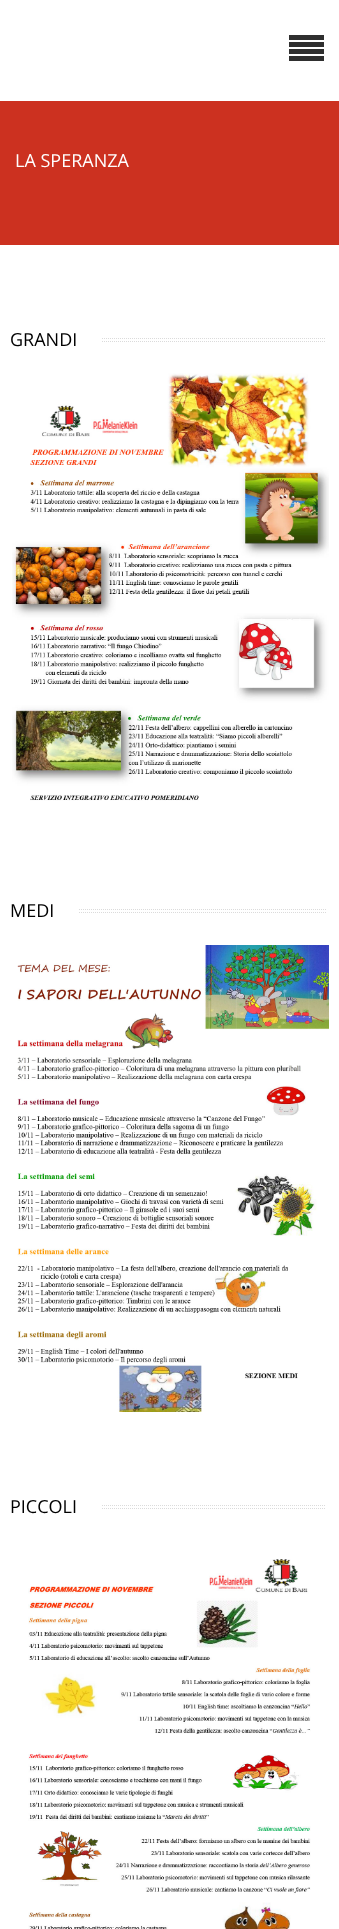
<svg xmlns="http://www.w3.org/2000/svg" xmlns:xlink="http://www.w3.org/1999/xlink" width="339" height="1929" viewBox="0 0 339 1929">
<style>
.cls-1{font:18px Open Sans;fill:#ffffff}
.cls-2{font:18px Open Sans;fill:#000000}
</style>
<rect width="100%" height="100%" fill="#ffffff"/>
<rect fill="#2f2f2f" x="289" y="35" width="35" height="5"/>
<rect fill="#2f2f2f" x="289" y="42" width="35" height="5"/>
<rect fill="#2f2f2f" x="289" y="49" width="35" height="5"/>
<rect fill="#2f2f2f" x="289" y="56" width="35" height="5"/>
<rect fill="#cc3120" x="0" y="101" width="339" height="144"/>
<path fill="none" stroke="#dbdbdb" stroke-dasharray="1 1" d="M102 338.5H326"/>
<path fill="none" stroke="#dbdbdb" stroke-dasharray="1 1" d="M102 341.5H326"/>
<image xlink:href="image0.png" x="12" y="373" width="317" height="428"/>
<path fill="none" stroke="#dbdbdb" stroke-dasharray="1 1" d="M79 909.5H326"/>
<path fill="none" stroke="#dbdbdb" stroke-dasharray="1 1" d="M79 912.5H326"/>
<image xlink:href="image1.png" x="17" y="945" width="312" height="467"/>
<path fill="none" stroke="#dbdbdb" stroke-dasharray="1 1" d="M102 1505.5H326"/>
<path fill="none" stroke="#dbdbdb" stroke-dasharray="1 1" d="M102 1508.5H326"/>
<image xlink:href="image2.png" x="28" y="1559" width="283" height="370"/>
<text class="cls-1" x="15" y="167">LA SPERANZA</text>
<text class="cls-2" x="10" y="346">GRANDI</text>
<text class="cls-2" x="10" y="917">MEDI</text>
<text class="cls-2" x="10" y="1513">PICCOLI</text>
</svg>
